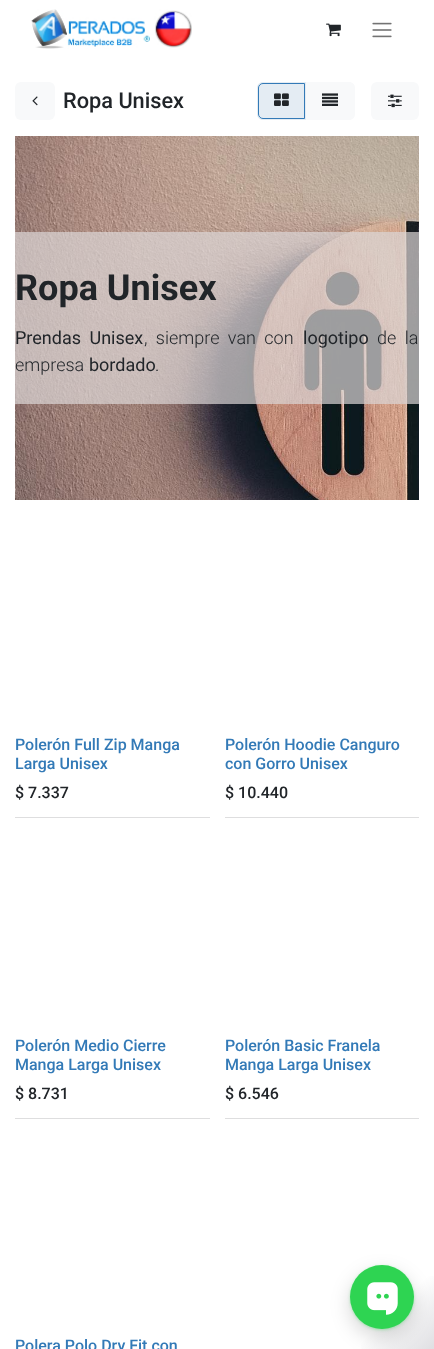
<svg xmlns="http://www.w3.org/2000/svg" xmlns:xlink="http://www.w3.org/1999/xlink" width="434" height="1349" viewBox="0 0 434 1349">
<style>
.cls-1{font:500 21.75px Roboto;fill:#212529}
.cls-2{font:bold 36px Roboto;fill:#212529}
.cls-3{font:18px Roboto;fill:#212529}
.cls-4{font:300 18px Roboto;fill:#212529}
.cls-5{font:500 16px Roboto;fill:#337ab7}
.cls-6{font:500 16px Roboto;fill:#212529}
</style>
<defs>
<linearGradient id="g1" gradientUnits="userSpaceOnUse" x1="334" y1="1249" x2="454" y2="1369"><stop offset="0.5" stop-color="#ffffff"/><stop offset="1" stop-color="#cfcfd4"/></linearGradient>
</defs>
<rect width="100%" height="100%" fill="#ffffff"/>
<image xlink:href="image0.png" x="31" y="9" width="161" height="40"/>
<image xlink:href="image1.png" x="326" y="23" width="15" height="14"/>
<image xlink:href="image2.png" x="372" y="22" width="20" height="16"/>
<rect fill="#f8f9fa" x="15" y="82" width="40" height="38" rx="6"/>
<image xlink:href="image3.png" x="32" y="96" width="6" height="10"/>
<path fill="#f8f9fa" d="M305 82H349C352.5 82 355 84.5 355 88V114C355 117.5 352.5 120 349 120H305Z"/>
<path fill="#e4ecf3" d="M263 82H306V120H263C259.5 120 257 117.5 257 114V88C257 84.5 259.5 82 263 82Z"/>
<path fill="none" stroke="#337ab7" d="M263 83.5H304.5V118.5H263C260.5 118.5 258.5 116.5 258.5 114V88C258.5 85.5 260.5 83.5 263 83.5Z"/>
<image xlink:href="image4.png" x="274" y="93" width="15" height="13"/>
<image xlink:href="image5.png" x="322" y="93" width="16" height="13"/>
<rect fill="#f8f9fa" x="371" y="82" width="48" height="38" rx="6"/>
<image xlink:href="image6.png" x="388" y="94" width="14" height="14"/>
<image xlink:href="image7.png" x="15" y="136" width="404" height="364"/>
<rect fill="#dbd6d6" fill-opacity="0.7" x="15" y="232" width="404" height="172"/>
<rect fill="#dededf" x="15" y="817" width="195" height="1"/>
<rect fill="#dededf" x="225" y="817" width="194" height="1"/>
<rect fill="#dededf" x="15" y="1118" width="195" height="1"/>
<rect fill="#dededf" x="225" y="1118" width="194" height="1"/>
<rect fill="url(#g1)" x="361" y="1276" width="73" height="73"/>
<rect fill="#000000" fill-opacity="0.16" filter="blur(10px)" x="350" y="1273" width="64" height="64" rx="32"/>
<rect fill="#2ed452" filter="blur(2px)" x="352" y="1268" width="60" height="60" rx="30"/>
<circle fill="#2ed452" cx="382" cy="1297" r="32"/>
<image xlink:href="image8.png" x="367" y="1282" width="31" height="33"/>
<text class="cls-1" x="63" y="108">Ropa Unisex</text>
<text class="cls-2" x="15" y="300">Ropa Unisex</text>
<text class="cls-3" x="15" y="344" word-spacing="4">Prendas Unisex</text>
<text class="cls-4" x="144" y="344" word-spacing="4">, siempre van con</text>
<text class="cls-3" x="303" y="344">logotipo</text>
<text class="cls-4" x="377" y="344" word-spacing="4">de la</text>
<text class="cls-4" x="15" y="371">empresa</text>
<text class="cls-3" x="89" y="371">bordado</text>
<text class="cls-4" x="155" y="371">.</text>
<text class="cls-5"><tspan x="15" y="750">Polerón Full Zip Manga</tspan><tspan x="15" y="769">Larga Unisex</tspan></text>
<text class="cls-6" x="15" y="798">$ 7.337</text>
<text class="cls-5"><tspan x="225" y="750">Polerón Hoodie Canguro</tspan><tspan x="225" y="769">con Gorro Unisex</tspan></text>
<text class="cls-6" x="225" y="798">$ 10.440</text>
<text class="cls-5"><tspan x="15" y="1051">Polerón Medio Cierre</tspan><tspan x="15" y="1070">Manga Larga Unisex</tspan></text>
<text class="cls-6" x="15" y="1099">$ 8.731</text>
<text class="cls-5"><tspan x="225" y="1051">Polerón Basic Franela</tspan><tspan x="225" y="1070">Manga Larga Unisex</tspan></text>
<text class="cls-6" x="225" y="1099">$ 6.546</text>
<text class="cls-5" x="15" y="1351">Polera Polo Dry Fit con</text>
</svg>
